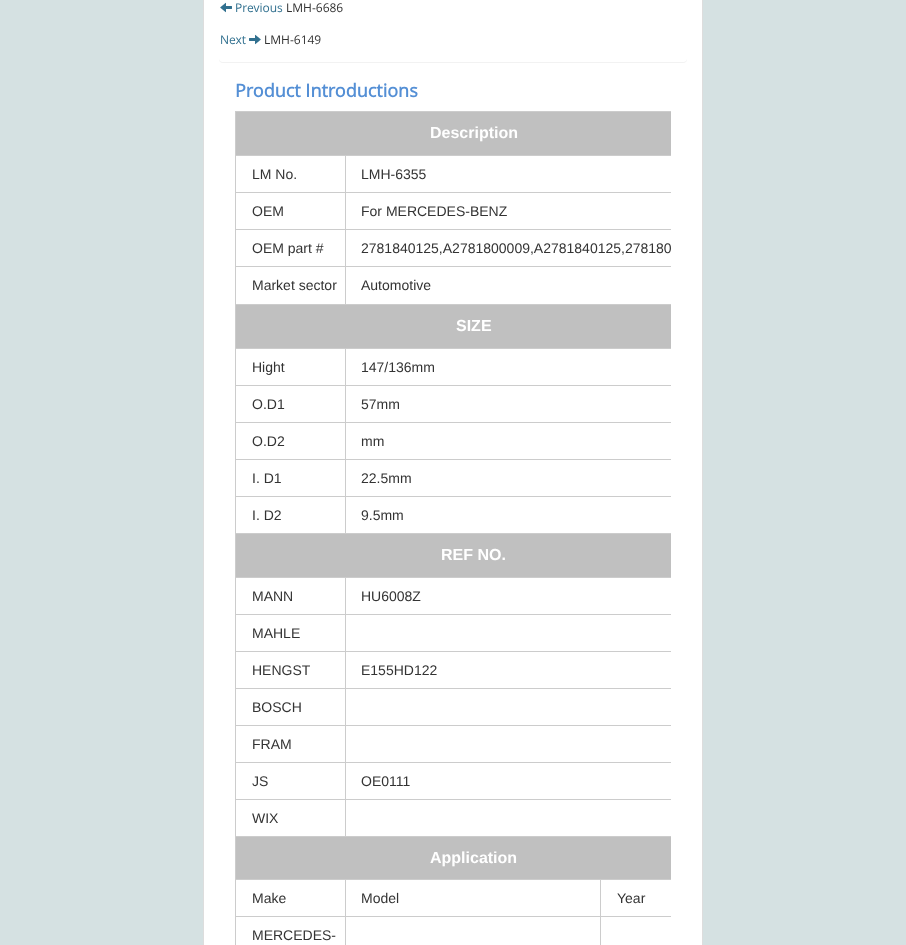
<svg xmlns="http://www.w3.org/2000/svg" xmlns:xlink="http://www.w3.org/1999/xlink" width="906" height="945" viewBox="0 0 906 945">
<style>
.cls-1{font:12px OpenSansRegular;fill:#31708f}
.cls-2{font:12px OpenSansRegular;fill:#333333}
.cls-3{font:bold 18px OpenSansRegular;fill:#548fd5}
.cls-4{font:bold 16px Liberation Sans;fill:#ffffff}
.cls-5{font:14px Liberation Sans;fill:#333333}
</style>
<defs>
<clipPath id="clip1"><rect x="235" y="111" width="436" height="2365"/></clipPath>
</defs>
<rect width="100%" height="100%" fill="#d5e1e2"/>
<rect fill="#ffffff" stroke="#dddddd" x="203.5" y="-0.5" width="499" height="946"/>
<rect fill="#000000" fill-opacity="0.05" filter="blur(0.5px)" x="219" y="-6" width="468" height="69" rx="4"/>
<rect fill="#ffffff" x="219" y="-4" width="468" height="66" rx="4"/>
<image xlink:href="image0.png" x="220" y="2" width="12" height="11"/>
<image xlink:href="image1.png" x="249" y="34" width="12" height="11"/>
<rect fill="#cccccc" x="235" y="111" width="436" height="1"/>
<rect fill="#cccccc" x="235" y="111" width="1" height="834"/>
<rect fill="#c0c0c0" x="236" y="112" width="435" height="43"/>
<rect fill="#cccccc" x="345" y="155" width="326" height="1"/>
<rect fill="#cccccc" x="345" y="192" width="326" height="1"/>
<rect fill="#cccccc" x="345" y="229" width="326" height="1"/>
<rect fill="#cccccc" x="345" y="266" width="326" height="1"/>
<rect fill="#cccccc" x="235" y="304" width="436" height="1"/>
<rect fill="#cccccc" x="345" y="266" width="1" height="39"/>
<rect fill="#cccccc" x="235" y="266" width="111" height="1"/>
<rect fill="#cccccc" x="345" y="229" width="1" height="38"/>
<rect fill="#cccccc" x="235" y="229" width="111" height="1"/>
<rect fill="#cccccc" x="345" y="192" width="1" height="38"/>
<rect fill="#cccccc" x="235" y="192" width="111" height="1"/>
<rect fill="#cccccc" x="345" y="155" width="1" height="38"/>
<rect fill="#cccccc" x="235" y="155" width="111" height="1"/>
<rect fill="#c0c0c0" x="236" y="305" width="435" height="43"/>
<rect fill="#cccccc" x="345" y="348" width="326" height="1"/>
<rect fill="#cccccc" x="345" y="385" width="326" height="1"/>
<rect fill="#cccccc" x="345" y="422" width="326" height="1"/>
<rect fill="#cccccc" x="345" y="459" width="326" height="1"/>
<rect fill="#cccccc" x="345" y="496" width="326" height="1"/>
<rect fill="#cccccc" x="235" y="533" width="436" height="1"/>
<rect fill="#cccccc" x="345" y="496" width="1" height="38"/>
<rect fill="#cccccc" x="235" y="496" width="111" height="1"/>
<rect fill="#cccccc" x="345" y="459" width="1" height="38"/>
<rect fill="#cccccc" x="235" y="459" width="111" height="1"/>
<rect fill="#cccccc" x="345" y="422" width="1" height="38"/>
<rect fill="#cccccc" x="235" y="422" width="111" height="1"/>
<rect fill="#cccccc" x="345" y="385" width="1" height="38"/>
<rect fill="#cccccc" x="235" y="385" width="111" height="1"/>
<rect fill="#cccccc" x="345" y="348" width="1" height="38"/>
<rect fill="#cccccc" x="235" y="348" width="111" height="1"/>
<rect fill="#c0c0c0" x="236" y="534" width="435" height="43"/>
<rect fill="#cccccc" x="345" y="577" width="326" height="1"/>
<rect fill="#cccccc" x="345" y="614" width="326" height="1"/>
<rect fill="#cccccc" x="345" y="651" width="326" height="1"/>
<rect fill="#cccccc" x="345" y="688" width="326" height="1"/>
<rect fill="#cccccc" x="345" y="725" width="326" height="1"/>
<rect fill="#cccccc" x="345" y="762" width="326" height="1"/>
<rect fill="#cccccc" x="345" y="799" width="326" height="1"/>
<rect fill="#cccccc" x="235" y="836" width="436" height="1"/>
<rect fill="#cccccc" x="345" y="799" width="1" height="38"/>
<rect fill="#cccccc" x="235" y="799" width="111" height="1"/>
<rect fill="#cccccc" x="345" y="762" width="1" height="38"/>
<rect fill="#cccccc" x="235" y="762" width="111" height="1"/>
<rect fill="#cccccc" x="345" y="725" width="1" height="38"/>
<rect fill="#cccccc" x="235" y="725" width="111" height="1"/>
<rect fill="#cccccc" x="345" y="688" width="1" height="38"/>
<rect fill="#cccccc" x="235" y="688" width="111" height="1"/>
<rect fill="#cccccc" x="345" y="651" width="1" height="38"/>
<rect fill="#cccccc" x="235" y="651" width="111" height="1"/>
<rect fill="#cccccc" x="345" y="614" width="1" height="38"/>
<rect fill="#cccccc" x="235" y="614" width="111" height="1"/>
<rect fill="#cccccc" x="345" y="577" width="1" height="38"/>
<rect fill="#cccccc" x="235" y="577" width="111" height="1"/>
<rect fill="#c0c0c0" x="236" y="837" width="435" height="42"/>
<rect fill="#cccccc" x="600" y="879" width="71" height="1"/>
<rect fill="#cccccc" x="600" y="916" width="71" height="1"/>
<rect fill="#cccccc" x="600" y="916" width="1" height="29"/>
<rect fill="#cccccc" x="345" y="916" width="256" height="1"/>
<rect fill="#cccccc" x="600" y="879" width="1" height="38"/>
<rect fill="#cccccc" x="345" y="879" width="256" height="1"/>
<rect fill="#cccccc" x="345" y="916" width="1" height="29"/>
<rect fill="#cccccc" x="235" y="916" width="111" height="1"/>
<rect fill="#cccccc" x="345" y="879" width="1" height="38"/>
<rect fill="#cccccc" x="235" y="879" width="111" height="1"/>
<text class="cls-1" x="235" y="12">Previous</text>
<text class="cls-2" x="286" y="12">LMH-6686</text>
<text class="cls-1" x="220" y="44">Next</text>
<text class="cls-2" x="264" y="44">LMH-6149</text>
<text class="cls-3" x="235" y="97">Product Introductions</text>
<text class="cls-4" x="430" y="138">Description</text>
<text class="cls-5" x="252" y="179">LM No.</text>
<text class="cls-5" x="361" y="179">LMH-6355</text>
<text class="cls-5" x="252" y="216">OEM</text>
<text class="cls-5" x="361" y="216">For MERCEDES-BENZ</text>
<text class="cls-5" x="252" y="253">OEM part #</text>
<g clip-path="url(#clip1)">
<text class="cls-5" x="361" y="253">2781840125,A2781800009,A2781840125,278180</text>
</g>
<text class="cls-5" x="252" y="290">Market sector</text>
<text class="cls-5" x="361" y="290">Automotive</text>
<text class="cls-4" x="456" y="331">SIZE</text>
<text class="cls-5" x="252" y="372">Hight</text>
<text class="cls-5" x="361" y="372">147/136mm</text>
<text class="cls-5" x="252" y="409">O.D1</text>
<text class="cls-5" x="361" y="409">57mm</text>
<text class="cls-5" x="252" y="446">O.D2</text>
<text class="cls-5" x="361" y="446">mm</text>
<text class="cls-5" x="252" y="483">I. D1</text>
<text class="cls-5" x="361" y="483">22.5mm</text>
<text class="cls-5" x="252" y="520">I. D2</text>
<text class="cls-5" x="361" y="520">9.5mm</text>
<text class="cls-4" x="441" y="560">REF NO.</text>
<text class="cls-5" x="252" y="601">MANN</text>
<text class="cls-5" x="361" y="601">HU6008Z</text>
<text class="cls-5" x="252" y="638">MAHLE</text>
<text class="cls-5" x="252" y="675">HENGST</text>
<text class="cls-5" x="361" y="675">E155HD122</text>
<text class="cls-5" x="252" y="712">BOSCH</text>
<text class="cls-5" x="252" y="749">FRAM</text>
<text class="cls-5" x="252" y="786">JS</text>
<text class="cls-5" x="361" y="786">OE0111</text>
<text class="cls-5" x="252" y="823">WIX</text>
<text class="cls-4" x="430" y="863">Application</text>
<text class="cls-5" x="252" y="903">Make</text>
<text class="cls-5" x="361" y="903">Model</text>
<text class="cls-5" x="617" y="903">Year</text>
<text class="cls-5" x="252" y="940">MERCEDES-</text>
</svg>
